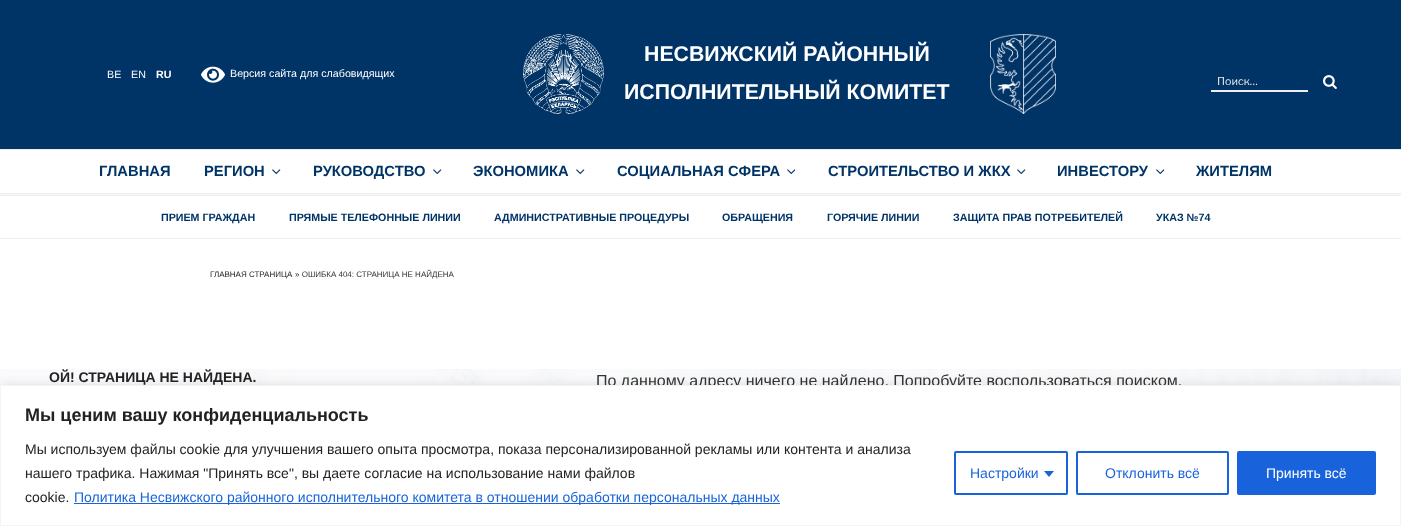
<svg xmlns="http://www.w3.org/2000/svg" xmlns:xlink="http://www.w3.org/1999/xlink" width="1401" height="526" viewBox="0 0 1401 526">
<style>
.cls-1{font:10.7px Liberation Sans;fill:#ffffff}
.cls-2{font:bold 10.7px Liberation Sans;fill:#ffffff}
.cls-3{font:bold 21.3px Liberation Sans;fill:#ffffff}
.cls-4{font:10.7px Libre Franklin;fill:#eeeeee}
.cls-5{font:bold 14.75px Liberation Sans;fill:#003366}
.cls-6{font:bold 10.7px Liberation Sans;fill:#003366}
.cls-7{font:8px Liberation Sans;fill:#222222}
.cls-8{font:8px Liberation Sans;fill:#333333}
.cls-9{font:bold 14px Liberation Sans;fill:#222222}
.cls-10{font:16px Liberation Sans;fill:#333333}
.cls-11{font:bold 18px Liberation Sans;fill:#222222}
.cls-12{font:14px Liberation Sans;fill:#222222}
.cls-13{font:14px Liberation Sans;fill:#1863dc}
.cls-14{font:14px Liberation Sans;fill:#ffffff}
</style>
<rect width="100%" height="100%" fill="#ffffff"/>
<rect fill="#fafafa" x="0" y="194" width="1401" height="1"/>
<rect fill="#003366" x="0" y="0" width="1401" height="149"/>
<image xlink:href="image0.png" x="201" y="66" width="24" height="17"/>
<image xlink:href="image1.png" x="523" y="34" width="81" height="80"/>
<image xlink:href="image2.png" x="990" y="34" width="66" height="80"/>
<rect fill="#eeeeee" x="1211" y="90" width="97" height="2"/>
<image xlink:href="image3.png" x="1323" y="75" width="14" height="14"/>
<rect fill="#eeeeee" x="0" y="149" width="1401" height="1"/>
<rect fill="#eeeeee" x="0" y="193" width="1401" height="1"/>
<image xlink:href="image4.png" x="272" y="169" width="9" height="5"/>
<image xlink:href="image4.png" x="433" y="169" width="9" height="5"/>
<image xlink:href="image4.png" x="576" y="169" width="9" height="5"/>
<image xlink:href="image4.png" x="787" y="169" width="9" height="5"/>
<image xlink:href="image4.png" x="1017" y="169" width="9" height="5"/>
<image xlink:href="image4.png" x="1156" y="169" width="9" height="5"/>
<rect fill="#eeeeee" x="0" y="195" width="1401" height="1"/>
<rect fill="#eeeeee" x="0" y="238" width="1401" height="1"/>
<image xlink:href="image5.png" x="0" y="369" width="1401" height="16"/>
<rect fill="#acabab" fill-opacity="0.3" filter="blur(5px)" x="0" y="384" width="1401" height="141"/>
<text class="cls-1" x="107" y="78">BE</text>
<text class="cls-1" x="131" y="78">EN</text>
<text class="cls-2" x="156" y="78">RU</text>
<text class="cls-1" x="230" y="77">Версия сайта для слабовидящих</text>
<text class="cls-3" x="644" y="61">НЕСВИЖСКИЙ РАЙОННЫЙ</text>
<text class="cls-3" x="624" y="99">ИСПОЛНИТЕЛЬНЫЙ КОМИТЕТ</text>
<text class="cls-4" x="1217" y="85">Поиск…</text>
<text class="cls-5" x="99" y="176">ГЛАВНАЯ</text>
<text class="cls-5" x="204" y="176">РЕГИОН</text>
<text class="cls-5" x="313" y="176">РУКОВОДСТВО</text>
<text class="cls-5" x="473" y="176">ЭКОНОМИКА</text>
<text class="cls-5" x="617" y="176">СОЦИАЛЬНАЯ СФЕРА</text>
<text class="cls-5" x="828" y="176">СТРОИТЕЛЬСТВО И ЖКХ</text>
<text class="cls-5" x="1057" y="176">ИНВЕСТОРУ</text>
<text class="cls-5" x="1196" y="176">ЖИТЕЛЯМ</text>
<text class="cls-6" x="161" y="221">ПРИЕМ ГРАЖДАН</text>
<text class="cls-6" x="289" y="221">ПРЯМЫЕ ТЕЛЕФОННЫЕ ЛИНИИ</text>
<text class="cls-6" x="494" y="221">АДМИНИСТРАТИВНЫЕ ПРОЦЕДУРЫ</text>
<text class="cls-6" x="722" y="221">ОБРАЩЕНИЯ</text>
<text class="cls-6" x="827" y="221">ГОРЯЧИЕ ЛИНИИ</text>
<text class="cls-6" x="953" y="221">ЗАЩИТА ПРАВ ПОТРЕБИТЕЛЕЙ</text>
<text class="cls-6" x="1156" y="221">УКАЗ №74</text>
<text class="cls-7" x="210" y="277">ГЛАВНАЯ СТРАНИЦА</text>
<text class="cls-8" x="295" y="277">» ОШИБКА 404: СТРАНИЦА НЕ НАЙДЕНА</text>
<text class="cls-9" x="49" y="382">ОЙ! СТРАНИЦА НЕ НАЙДЕНА.</text>
<text class="cls-10" x="596" y="386">По данному адресу ничего не найдено. Попробуйте воспользоваться поиском.</text>
<rect fill="#ffffff" stroke="#f4f4f4" x="0.5" y="385.5" width="1400" height="140"/>
<text class="cls-11" x="25" y="421">Мы ценим вашу конфиденциальность</text>
<text class="cls-12"><tspan x="25" y="454">Мы используем файлы cookie для улучшения вашего опыта просмотра, показа персонализированной рекламы или контента и анализа</tspan><tspan x="25" y="478">нашего трафика. Нажимая "Принять все", вы даете согласие на использование нами файлов</tspan><tspan x="25" y="502">cookie.</tspan></text>
<rect fill="#1863dc" x="74" y="503" width="706" height="1"/>
<text class="cls-13" x="74" y="502">Политика Несвижского районного исполнительного комитета в отношении обработки персональных данных</text>
<rect fill="none" stroke="#1863dc" stroke-width="2" x="955" y="452" width="112" height="42" rx="1"/>
<text class="cls-13" x="970" y="478">Настройки</text>
<path fill="#1863dc" d="M1044 471H1054L1049 477Z"/>
<rect fill="none" stroke="#1863dc" stroke-width="2" x="1077" y="452" width="151" height="42" rx="1"/>
<text class="cls-13" x="1105" y="478">Отклонить всё</text>
<rect fill="#1863dc" stroke="#1863dc" stroke-width="2" x="1238" y="452" width="137" height="42" rx="1"/>
<text class="cls-14" x="1266" y="478">Принять всё</text>
</svg>
